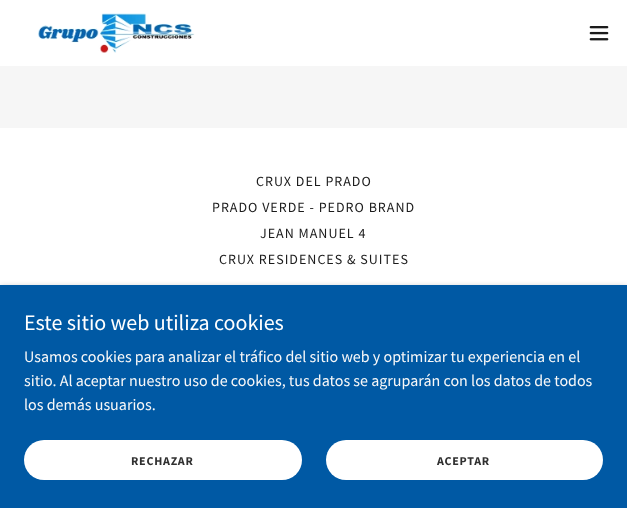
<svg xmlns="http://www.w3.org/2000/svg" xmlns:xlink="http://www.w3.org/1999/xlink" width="627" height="508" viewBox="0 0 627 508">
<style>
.cls-1{font:14px Source Sans Pro;letter-spacing:1px;fill:#1b1b1b}
.cls-2{font:22px Source Sans Pro;fill:#ffffff}
.cls-3{font:16px Source Sans Pro;fill:#f8f8f8}
.cls-4{font:bold 12px Source Sans Pro;letter-spacing:0.75px;fill:#303030}
</style>
<rect width="100%" height="100%" fill="#ffffff"/>
<image xlink:href="image0.png" x="38" y="13" width="157" height="40"/>
<image xlink:href="image1.png" x="589" y="26" width="20" height="15"/>
<rect fill="#f6f6f6" x="0" y="66" width="627" height="62"/>
<rect fill="#000000" fill-opacity="0.3" filter="blur(3px)" x="0" y="287" width="627" height="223"/>
<rect fill="#0059a4" x="0" y="285" width="627" height="223"/>
<rect fill="#ffffff" x="24" y="440" width="278" height="40" rx="20"/>
<rect fill="#ffffff" x="326" y="440" width="277" height="40" rx="20"/>
<text class="cls-1" x="256" y="186">CRUX DEL PRADO</text>
<text class="cls-1" x="212" y="212">PRADO VERDE - PEDRO BRAND</text>
<text class="cls-1" x="260" y="238">JEAN MANUEL 4</text>
<text class="cls-1" x="219" y="264">CRUX RESIDENCES &amp; SUITES</text>
<text class="cls-2" x="24" y="330">Este sitio web utiliza cookies</text>
<text class="cls-3"><tspan x="24" y="362">Usamos cookies para analizar el tráfico del sitio web y optimizar tu experiencia en el</tspan><tspan x="24" y="386">sitio. Al aceptar nuestro uso de cookies, tus datos se agruparán con los datos de todos</tspan><tspan x="24" y="410">los demás usuarios.</tspan></text>
<text class="cls-4" x="131" y="465">RECHAZAR</text>
<text class="cls-4" x="437" y="465">ACEPTAR</text>
</svg>
